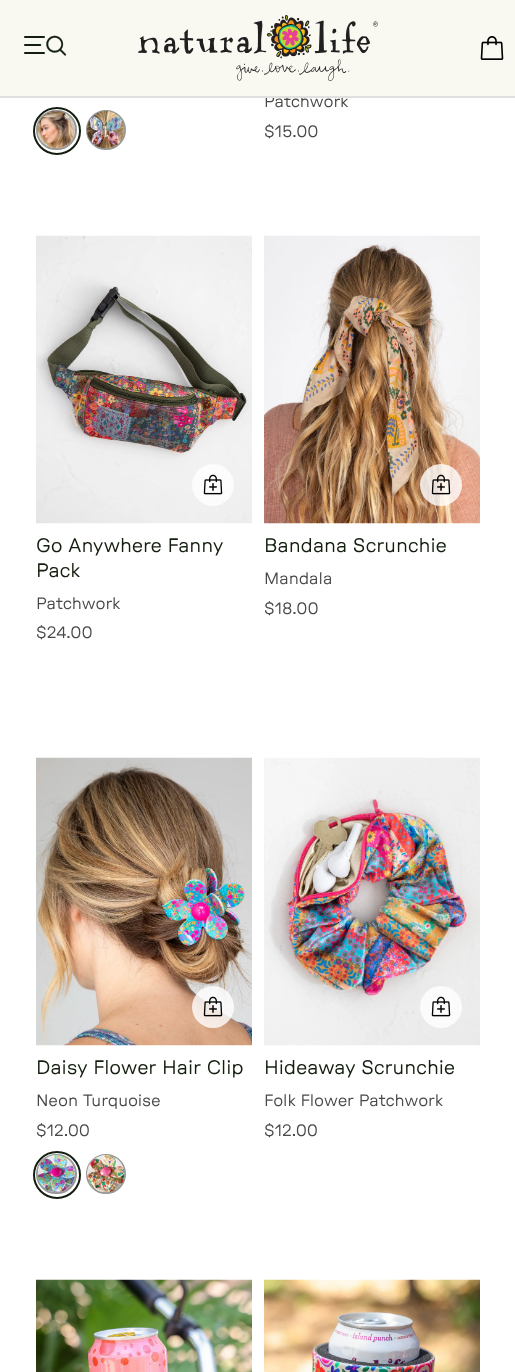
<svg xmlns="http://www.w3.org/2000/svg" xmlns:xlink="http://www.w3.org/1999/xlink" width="515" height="1372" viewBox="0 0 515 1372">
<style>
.cls-1{font:300 16.5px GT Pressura;fill:#484a47}
.cls-2{font:300 19.5px GT Pressura;fill:#131e0f}
</style>
<rect width="100%" height="100%" fill="#ffffff"/>
<rect fill="none" stroke="#979896" stroke-width="2" x="37" y="111" width="39" height="38" rx="19"/>
<image xlink:href="image3.png" x="37" y="111" width="38" height="38"/>
<circle fill="none" stroke="#131e0f" stroke-width="2" cx="57" cy="131" r="23"/>
<circle fill="none" stroke="#979896" stroke-width="2" cx="106" cy="130" r="19"/>
<image xlink:href="image4.png" x="87" y="111" width="38" height="38"/>
<image xlink:href="image5.png" x="36" y="235" width="216" height="289"/>
<circle fill="#ffffff" fill-opacity="0.8" cx="213" cy="485" r="21"/>
<image xlink:href="image6.png" x="203" y="474" width="20" height="21"/>
<image xlink:href="image7.png" x="264" y="235" width="216" height="289"/>
<circle fill="#ffffff" fill-opacity="0.8" cx="441" cy="485" r="21"/>
<image xlink:href="image8.png" x="431" y="474" width="20" height="21"/>
<image xlink:href="image9.png" x="36" y="757" width="216" height="289"/>
<circle fill="#ffffff" fill-opacity="0.8" cx="213" cy="1007" r="21"/>
<image xlink:href="image10.png" x="203" y="996" width="20" height="21"/>
<rect fill="none" stroke="#979896" stroke-width="2" x="37" y="1155" width="39" height="38" rx="19"/>
<image xlink:href="image11.png" x="37" y="1155" width="38" height="38"/>
<circle fill="none" stroke="#131e0f" stroke-width="2" cx="57" cy="1175" r="23"/>
<circle fill="none" stroke="#979896" stroke-width="2" cx="106" cy="1174" r="19"/>
<image xlink:href="image12.png" x="87" y="1155" width="38" height="38"/>
<image xlink:href="image13.png" x="264" y="757" width="216" height="289"/>
<circle fill="#ffffff" fill-opacity="0.8" cx="441" cy="1007" r="21"/>
<image xlink:href="image14.png" x="431" y="996" width="20" height="21"/>
<image xlink:href="image15.png" x="36" y="1279" width="216" height="93"/>
<image xlink:href="image16.png" x="264" y="1279" width="216" height="93"/>
<text class="cls-1" x="264" y="107">Patchwork</text>
<rect fill="#f9f9f2" x="0" y="0" width="515" height="96"/>
<image xlink:href="image2.png" x="480" y="36" width="24" height="24"/>
<image xlink:href="image1.png" x="138" y="15" width="240" height="66"/>
<image xlink:href="image0.png" x="24" y="35" width="43" height="21"/>
<rect fill="#e1e0de" x="0" y="96" width="515" height="2"/>
<text class="cls-1" x="264" y="137">$15.00</text>
<text class="cls-2"><tspan x="36" y="552">Go Anywhere Fanny</tspan><tspan x="36" y="577">Pack</tspan></text>
<text class="cls-1"><tspan x="36" y="609">Patchwork</tspan><tspan x="36" y="638">$24.00</tspan></text>
<text class="cls-2" x="264" y="552">Bandana Scrunchie</text>
<text class="cls-1"><tspan x="264" y="584">Mandala</tspan><tspan x="264" y="614">$18.00</tspan></text>
<text class="cls-2" x="36" y="1074">Daisy Flower Hair Clip</text>
<text class="cls-1"><tspan x="36" y="1106">Neon Turquoise</tspan><tspan x="36" y="1136">$12.00</tspan></text>
<text class="cls-2" x="264" y="1074">Hideaway Scrunchie</text>
<text class="cls-1"><tspan x="264" y="1106">Folk Flower Patchwork</tspan><tspan x="264" y="1136">$12.00</tspan></text>
</svg>
